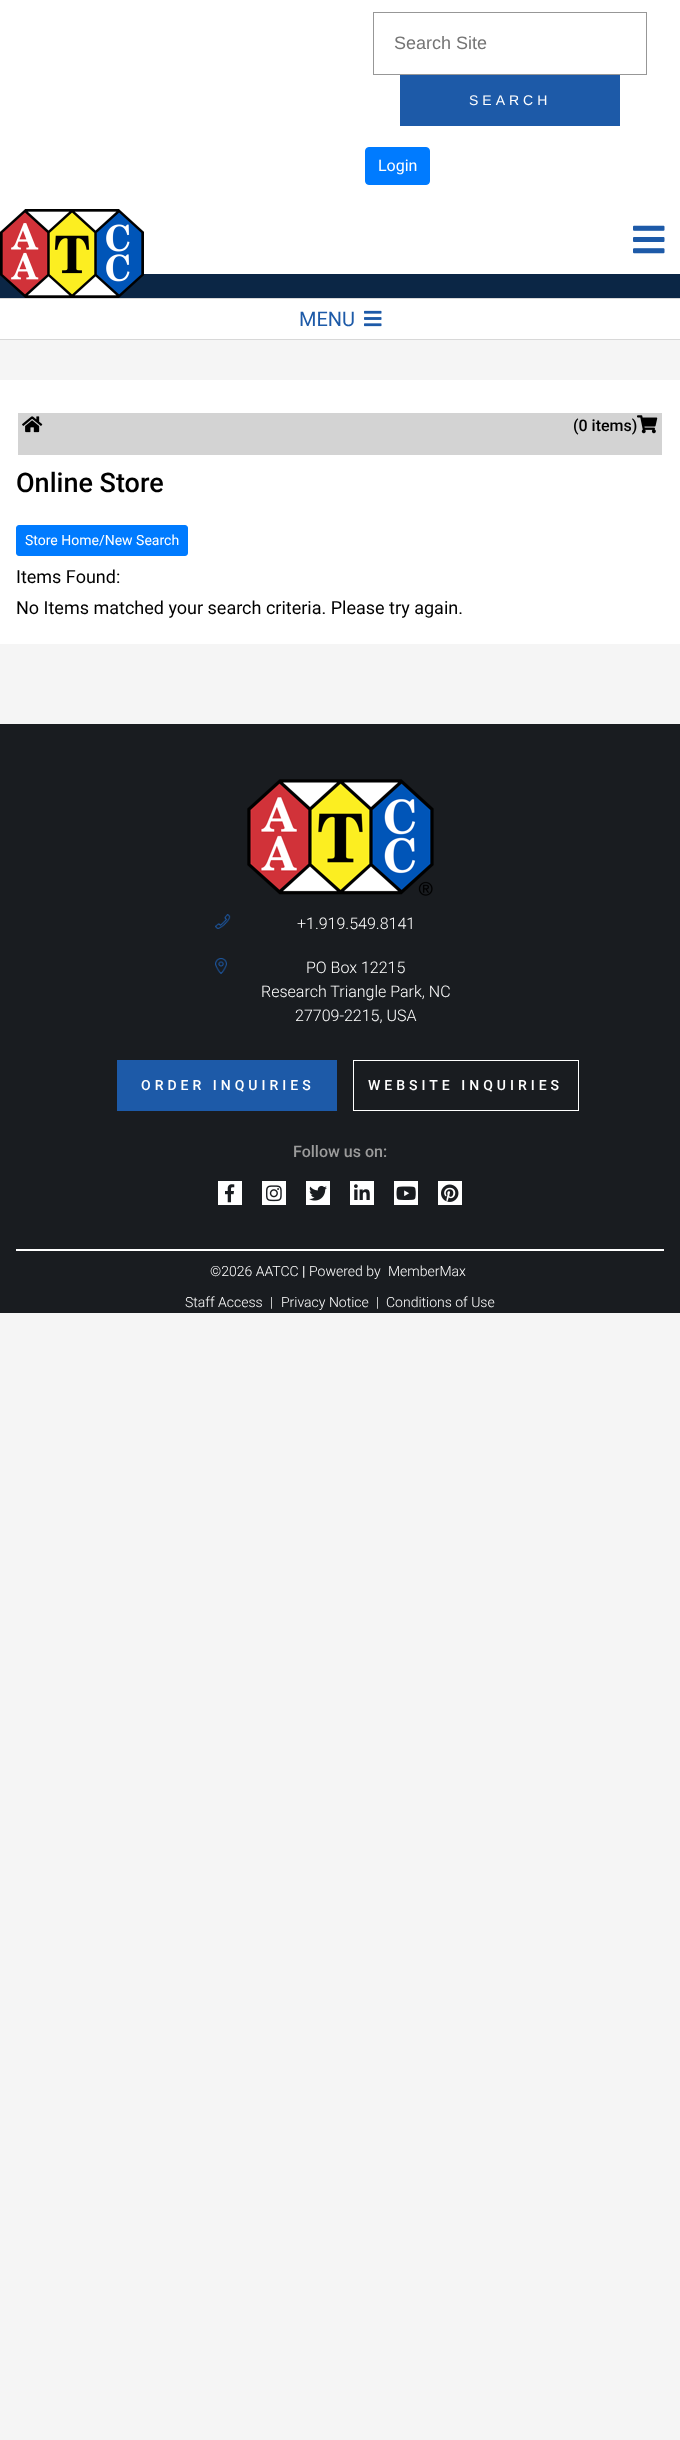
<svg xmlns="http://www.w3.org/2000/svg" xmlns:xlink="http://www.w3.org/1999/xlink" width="680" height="2440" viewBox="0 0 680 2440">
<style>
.cls-1{font:18px Liberation Sans;fill:#757575}
.cls-2{font:14px Liberation Sans;letter-spacing:4px;fill:#ffffff}
.cls-3{font:16px Roboto;fill:#ffffff}
.cls-4{font:20px Roboto;fill:#1d5aa8}
.cls-5{font:500 16px Roboto;fill:#000000}
.cls-6{font:500 27px Roboto;fill:#000000}
.cls-7{font:14px Roboto;fill:#ffffff}
.cls-8{font:18px Roboto;fill:#000000}
.cls-9{font:300 16px Roboto;fill:#ffffff}
.cls-10{font:500 14px Roboto;letter-spacing:4px;fill:#ffffff}
.cls-11{font:500 16px Roboto;fill:#9b9b9b}
.cls-12{font:300 14px Roboto;fill:#ffffff}
</style>
<rect width="100%" height="100%" fill="#f5f5f5"/>
<rect fill="#ffffff" x="0" y="0" width="680" height="274"/>
<rect fill="none" stroke="#979797" x="373.5" y="12.5" width="273" height="62"/>
<rect fill="#1d5aa8" x="400" y="75" width="220" height="51"/>
<rect fill="#007bff" stroke="#007bff" x="365.5" y="147.5" width="64" height="37" rx="3.5"/>
<rect fill="#0b2645" x="0" y="274" width="680" height="24"/>
<image xlink:href="image0.png" x="0" y="209" width="144" height="89"/>
<image xlink:href="image1.png" x="633" y="225" width="32" height="29"/>
<rect fill="#ffffff" x="0" y="299" width="680" height="40"/>
<rect fill="#d8d8d8" x="0" y="298" width="680" height="1"/>
<rect fill="#d8d8d8" x="0" y="339" width="680" height="1"/>
<image xlink:href="image2.png" x="364" y="310" width="18" height="17"/>
<rect fill="#ffffff" x="0" y="380" width="680" height="264"/>
<rect fill="#d3d3d3" x="18" y="413" width="644" height="42"/>
<image xlink:href="image3.png" x="22" y="416" width="21" height="17"/>
<image xlink:href="image4.png" x="637" y="415" width="21" height="19"/>
<rect fill="#007bff" stroke="#007bff" x="16.5" y="525.5" width="171" height="30" rx="2.5"/>
<rect fill="#191c20" x="0" y="724" width="680" height="589"/>
<rect fill="#ffffff" x="16" y="1249" width="648" height="2"/>
<image xlink:href="image5.png" x="247" y="779" width="187" height="117"/>
<image xlink:href="image6.png" x="215" y="914" width="16" height="15"/>
<image xlink:href="image7.png" x="215" y="958" width="12" height="16"/>
<rect fill="#1d5aa8" x="117" y="1060" width="220" height="51"/>
<rect fill="none" stroke="#ffffff" x="353.5" y="1060.5" width="225" height="50"/>
<rect fill="#ffffff" x="218" y="1181" width="24" height="24"/>
<image xlink:href="image8.png" x="225" y="1184" width="10" height="19"/>
<rect fill="#ffffff" x="262" y="1181" width="24" height="24"/>
<image xlink:href="image9.png" x="266" y="1185" width="16" height="17"/>
<rect fill="#ffffff" x="306" y="1181" width="24" height="24"/>
<image xlink:href="image10.png" x="309" y="1185" width="18" height="16"/>
<rect fill="#ffffff" x="350" y="1181" width="24" height="24"/>
<image xlink:href="image11.png" x="354" y="1184" width="16" height="16"/>
<rect fill="#ffffff" x="394" y="1181" width="24" height="24"/>
<image xlink:href="image12.png" x="396" y="1186" width="20" height="14"/>
<rect fill="#ffffff" x="438" y="1181" width="24" height="24"/>
<image xlink:href="image13.png" x="441" y="1184" width="18" height="18"/>
<text class="cls-1" x="394" y="49">Search Site</text>
<text class="cls-2" x="469" y="105">SEARCH</text>
<text class="cls-3" x="378" y="171">Login</text>
<text class="cls-4" x="299" y="326">MENU</text>
<text class="cls-5" x="573" y="431">(0 items)</text>
<text class="cls-6" x="16" y="492">Online Store</text>
<text class="cls-7" x="25" y="545">Store Home/New Search</text>
<text class="cls-8"><tspan x="16" y="583">Items Found:</tspan><tspan x="16" y="614">No Items matched your search criteria. Please try again.</tspan></text>
<text class="cls-9" x="297" y="929">+1.919.549.8141</text>
<text class="cls-9" x="306" y="973">PO Box 12215</text>
<text class="cls-9" x="261" y="997">Research Triangle Park, NC</text>
<text class="cls-9" x="295" y="1021">27709-2215, USA</text>
<text class="cls-10" x="141" y="1090">ORDER INQUIRIES</text>
<text class="cls-10" x="368" y="1090">WEBSITE INQUIRIES</text>
<text class="cls-11" x="293" y="1157">Follow us on:</text>
<text class="cls-12" x="210" y="1276">©2026 AATCC</text>
<text class="cls-7" x="302" y="1276">|</text>
<text class="cls-12" x="309" y="1276">Powered by</text>
<text class="cls-12" x="388" y="1276">MemberMax</text>
<text class="cls-12" x="185" y="1307">Staff Access</text>
<text class="cls-12" x="270" y="1307">|</text>
<text class="cls-12" x="281" y="1307">Privacy Notice</text>
<text class="cls-12" x="376" y="1307">|</text>
<text class="cls-12" x="386" y="1307">Conditions of Use</text>
</svg>
